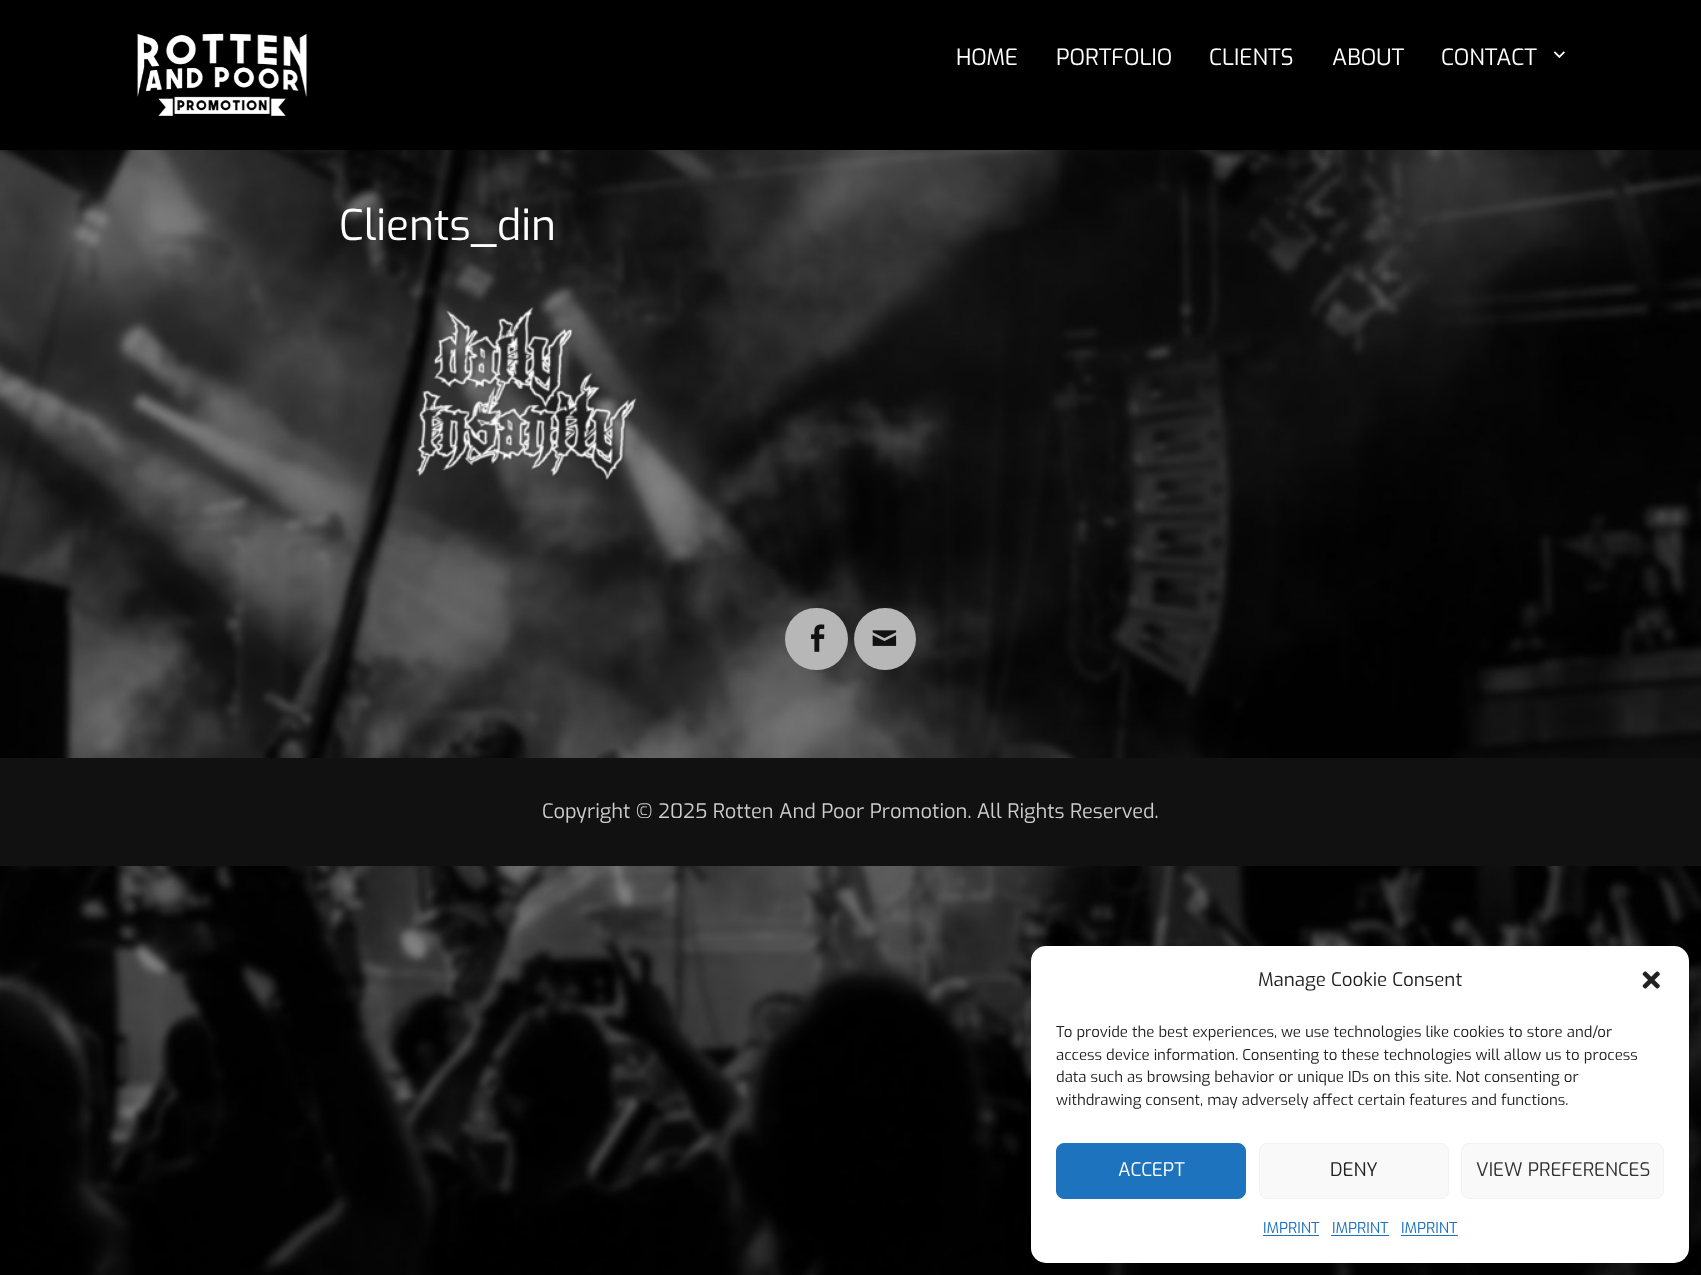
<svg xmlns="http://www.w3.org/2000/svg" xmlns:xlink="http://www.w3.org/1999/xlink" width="1701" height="1275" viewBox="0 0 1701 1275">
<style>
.cls-1{font:22.5px Exo;fill:#ffffff}
.cls-2{font:42.5px Exo;fill:#ffffff}
.cls-3{font:20px Exo;fill:#cccccc}
.cls-4{font:18.75px Exo;fill:#222222}
.cls-5{font:15px Exo;fill:#222222}
.cls-6{font:18.75px Exo;fill:#ffffff}
.cls-7{font:18.75px Exo;fill:#333333}
.cls-8{font:15px Exo;fill:#1e73be}
</style>
<rect width="100%" height="100%" fill="#ffffff"/>
<image xlink:href="image0.png" x="0" y="150" width="1701" height="1125"/>
<rect fill="#000000" x="0" y="0" width="1701" height="150"/>
<image xlink:href="image1.png" x="137" y="33" width="171" height="83"/>
<image xlink:href="image2.png" x="1553" y="51" width="12" height="7"/>
<image xlink:href="image3.png" x="416" y="307" width="221" height="174"/>
<rect fill="#b7b7b7" x="785" y="608" width="63" height="62" rx="31"/>
<image xlink:href="image4.png" x="811" y="624" width="14" height="28"/>
<circle fill="#b7b7b7" cx="885" cy="639" r="31"/>
<image xlink:href="image5.png" x="872" y="630" width="25" height="16"/>
<rect fill="#111111" x="0" y="758" width="1701" height="108"/>
<rect fill="#000000" fill-opacity="0.23" filter="blur(4px)" x="1031" y="954" width="658" height="316" rx="15"/>
<rect fill="#000000" fill-opacity="0.19" filter="blur(12.5px)" x="1031" y="959" width="658" height="316" rx="15"/>
<rect fill="#ffffff" x="1031" y="946" width="658" height="317" rx="15"/>
<image xlink:href="image6.png" x="1642" y="971" width="18" height="18"/>
<rect fill="#1e73be" stroke="#1e73be" x="1056.5" y="1143.5" width="189" height="55" rx="7.5"/>
<rect fill="#f9f9f9" stroke="#f2f2f2" x="1259.5" y="1143.5" width="189" height="55" rx="7.5"/>
<rect fill="#f9f9f9" stroke="#f2f2f2" x="1461.5" y="1143.5" width="202" height="55" rx="7.5"/>
<rect fill="#1e73be" x="1263" y="1235" width="56" height="1"/>
<rect fill="#1e73be" x="1331" y="1235" width="58" height="1"/>
<rect fill="#1e73be" x="1401" y="1235" width="57" height="1"/>
<text class="cls-1" x="956" y="65">HOME</text>
<text class="cls-1" x="1056" y="65">PORTFOLIO</text>
<text class="cls-1" x="1209" y="65">CLIENTS</text>
<text class="cls-1" x="1332" y="65">ABOUT</text>
<text class="cls-1" x="1441" y="65">CONTACT</text>
<text class="cls-2" x="339" y="240">Clients_din</text>
<text class="cls-3" x="542" y="818">Copyright © 2025 Rotten And Poor Promotion. All Rights Reserved.</text>
<text class="cls-4" x="1258" y="986">Manage Cookie Consent</text>
<text class="cls-5"><tspan x="1056" y="1037">To provide the best experiences, we use technologies like cookies to store and/or</tspan><tspan x="1056" y="1060">access device information. Consenting to these technologies will allow us to process</tspan><tspan x="1056" y="1082">data such as browsing behavior or unique IDs on this site. Not consenting or</tspan><tspan x="1056" y="1105">withdrawing consent, may adversely affect certain features and functions.</tspan></text>
<text class="cls-6" x="1118" y="1176">ACCEPT</text>
<text class="cls-4" x="1330" y="1176">DENY</text>
<text class="cls-7" x="1476" y="1176">VIEW PREFERENCES</text>
<text class="cls-8" x="1263" y="1233">IMPRINT</text>
<text class="cls-8" x="1332" y="1233">IMPRINT</text>
<text class="cls-8" x="1401" y="1233">IMPRINT</text>
</svg>
